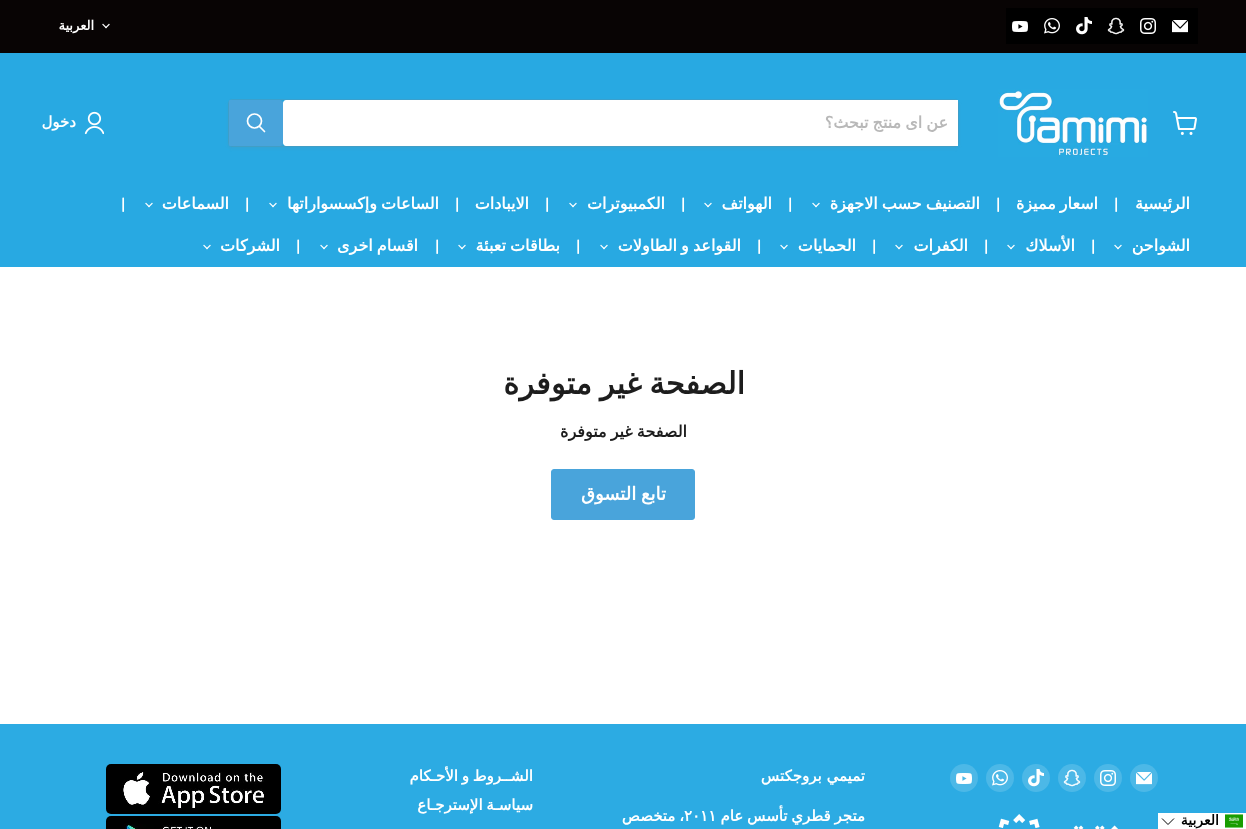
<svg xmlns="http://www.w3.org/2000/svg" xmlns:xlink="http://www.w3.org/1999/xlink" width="1246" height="829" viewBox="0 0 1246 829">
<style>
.cls-1{font:bold 13px DejaVu Sans;direction:rtl;fill:#ffffff}
.cls-2{font:bold 16px DejaVu Sans;direction:rtl;fill:#b8b8b8}
.cls-3{font:bold 15px DejaVu Sans;direction:rtl;fill:#ffffff}
.cls-4{font:bold 16px DejaVu Sans;direction:rtl;fill:#ffffff}
.cls-5{font:600 16px Nunito;fill:#ffffff}
.cls-6{font:bold 30.5px DejaVu Sans;direction:rtl;fill:#1d1d1d}
.cls-7{font:bold 16px DejaVu Sans;direction:rtl;fill:#1d1d1d}
.cls-8{font:bold 18px DejaVu Sans;direction:rtl;fill:#ffffff}
.cls-9{font:bold 14px DejaVu Sans;direction:rtl;fill:#000000}
.cls-10{font:bold 15px DejaVu Sans;fill:#ffffff}
</style>
<rect width="100%" height="100%" fill="#ffffff"/>
<rect fill="#080404" x="0" y="0" width="1246" height="53"/>
<rect fill="#000000" x="1006" y="8" width="192" height="36"/>
<image xlink:href="image0.png" x="1172" y="20" width="16" height="13"/>
<image xlink:href="image1.png" x="1140" y="18" width="16" height="16"/>
<image xlink:href="image2.png" x="1107" y="17" width="18" height="18"/>
<image xlink:href="image3.png" x="1076" y="17" width="16" height="18"/>
<image xlink:href="image4.png" x="1044" y="18" width="16" height="16"/>
<image xlink:href="image5.png" x="1012" y="21" width="16" height="11"/>
<image xlink:href="image6.png" x="102" y="23" width="8" height="6"/>
<rect fill="#28a9e2" x="0" y="53" width="1246" height="214"/>
<image xlink:href="image7.png" x="998" y="89" width="150" height="68"/>
<rect fill="#808080" fill-opacity="0.11" filter="blur(1.5px)" x="228" y="101" width="731" height="48" rx="4"/>
<rect fill="none" stroke="#808080" stroke-opacity="0.2" x="228.5" y="99.5" width="730" height="47" rx="3.5"/>
<path fill="#ffffff" d="M286 100H958V146H286C284.5 146 283 144.5 283 143V103C283 101.5 284.5 100 286 100Z"/>
<path fill="#49a4db" stroke="#49a4db" d="M229.5 100.5H280C281.5 100.5 282.5 101.5 282.5 103V143C282.5 144.5 281.5 145.5 280 145.5H229.5Z"/>
<path fill="none" stroke="#ffffff" stroke-width="1.7" stroke-linecap="round" d="M264.5 131.5L259.5 126.5"/>
<circle fill="none" stroke="#ffffff" stroke-width="1.7" cx="254.5" cy="121" r="7"/>
<image xlink:href="image8.png" x="1173" y="111" width="24" height="24"/>
<image xlink:href="image9.png" x="84" y="111" width="20" height="24"/>
<image xlink:href="image10.png" x="812" y="202" width="8" height="6"/>
<image xlink:href="image10.png" x="704" y="202" width="8" height="6"/>
<image xlink:href="image10.png" x="569" y="202" width="8" height="6"/>
<image xlink:href="image10.png" x="269" y="202" width="8" height="6"/>
<image xlink:href="image10.png" x="145" y="202" width="8" height="6"/>
<image xlink:href="image10.png" x="1114" y="244" width="8" height="6"/>
<image xlink:href="image10.png" x="1007" y="244" width="8" height="6"/>
<image xlink:href="image10.png" x="895" y="244" width="8" height="6"/>
<image xlink:href="image10.png" x="780" y="244" width="8" height="6"/>
<image xlink:href="image10.png" x="600" y="244" width="8" height="6"/>
<image xlink:href="image10.png" x="458" y="244" width="8" height="6"/>
<image xlink:href="image10.png" x="320" y="244" width="8" height="6"/>
<image xlink:href="image10.png" x="203" y="244" width="8" height="6"/>
<rect fill="#49a4db" stroke="#49a4db" x="551.5" y="469.5" width="143" height="50" rx="2.5"/>
<rect fill="#2cabe3" x="0" y="724" width="1246" height="105"/>
<rect fill="#ffffff" x="1158" y="813" width="88" height="16"/>
<image xlink:href="image11.png" x="1225" y="814" width="18" height="14"/>
<path fill="none" stroke="#000000" d="M1162 818.5L1168 824.5L1174 818.5"/>
<circle fill="#4cb8e7" cx="1144" cy="778" r="14"/>
<image xlink:href="image12.png" x="1136" y="772" width="16" height="13"/>
<circle fill="#4cb8e7" cx="1108" cy="778" r="14"/>
<image xlink:href="image13.png" x="1100" y="770" width="16" height="16"/>
<circle fill="#4cb8e7" cx="1072" cy="778" r="14"/>
<image xlink:href="image14.png" x="1063" y="769" width="18" height="18"/>
<circle fill="#4cb8e7" cx="1036" cy="778" r="14"/>
<image xlink:href="image15.png" x="1028" y="769" width="16" height="18"/>
<circle fill="#4cb8e7" cx="1000" cy="778" r="14"/>
<image xlink:href="image16.png" x="992" y="770" width="16" height="16"/>
<circle fill="#4cb8e7" cx="964" cy="778" r="14"/>
<image xlink:href="image17.png" x="956" y="773" width="16" height="11"/>
<image xlink:href="image18.png" x="998" y="814" width="120" height="15"/>
<image xlink:href="image19.png" x="106" y="764" width="175" height="50"/>
<image xlink:href="image20.png" x="106" y="816" width="175" height="13"/>
<text class="cls-1" x="94" y="30">العربية</text>
<text class="cls-2" x="948" y="128" word-spacing="-1">عن اى منتج تبحث؟</text>
<text class="cls-3" x="76" y="127">دخول</text>
<text class="cls-4" x="1190" y="209">الرئيسية</text>
<text class="cls-5" x="1114" y="209">|</text>
<text class="cls-4" x="1098" y="209" word-spacing="-1">اسعار مميزة</text>
<text class="cls-5" x="996" y="209">|</text>
<text class="cls-4" x="980" y="209" word-spacing="-1">التصنيف حسب الاجهزة</text>
<text class="cls-5" x="788" y="209">|</text>
<text class="cls-4" x="772" y="209">الهواتف</text>
<text class="cls-5" x="681" y="209">|</text>
<text class="cls-4" x="665" y="209">الكمبيوترات</text>
<text class="cls-5" x="545" y="209">|</text>
<text class="cls-4" x="529" y="209">الايبادات</text>
<text class="cls-5" x="455" y="209">|</text>
<text class="cls-4" x="439" y="209" word-spacing="-1">الساعات وإكسسواراتها</text>
<text class="cls-5" x="245" y="209">|</text>
<text class="cls-4" x="229" y="209">السماعات</text>
<text class="cls-5" x="121" y="209">|</text>
<text class="cls-4" x="1190" y="251">الشواحن</text>
<text class="cls-5" x="1091" y="251">|</text>
<text class="cls-4" x="1075" y="251">الأسلاك</text>
<text class="cls-5" x="984" y="251">|</text>
<text class="cls-4" x="968" y="251">الكفرات</text>
<text class="cls-5" x="872" y="251">|</text>
<text class="cls-4" x="856" y="251">الحمايات</text>
<text class="cls-5" x="757" y="251">|</text>
<text class="cls-4" x="741" y="251" word-spacing="-1">القواعد و الطاولات</text>
<text class="cls-5" x="576" y="251">|</text>
<text class="cls-4" x="560" y="251" word-spacing="-1">بطاقات تعبئة</text>
<text class="cls-5" x="435" y="251">|</text>
<text class="cls-4" x="418" y="251" word-spacing="-1">اقسام اخرى</text>
<text class="cls-5" x="296" y="251">|</text>
<text class="cls-4" x="280" y="251">الشركات</text>
<text class="cls-6" x="745" y="394" word-spacing="-2">الصفحة غير متوفرة</text>
<text class="cls-7" x="687" y="437" word-spacing="-1">الصفحة غير متوفرة</text>
<text class="cls-8" x="666" y="500" word-spacing="-1">تابع التسوق</text>
<text class="cls-9" x="1219" y="825">العربية</text>
<text class="cls-3" x="865" y="781">تميمي بروجكتس</text>
<text class="cls-3" x="865" y="821" word-spacing="-1">متجر قطري تأسس عام</text>
<text class="cls-10" x="684" y="821">٢٠١١</text>
<text class="cls-3" x="684" y="821" word-spacing="-1">، متخصص</text>
<text class="cls-3"><tspan x="533" y="781" word-spacing="-1">الشــروط و الأحـكام</tspan><tspan x="533" y="810" word-spacing="-1">سياسـة الإسترجـاع</tspan></text>
</svg>
